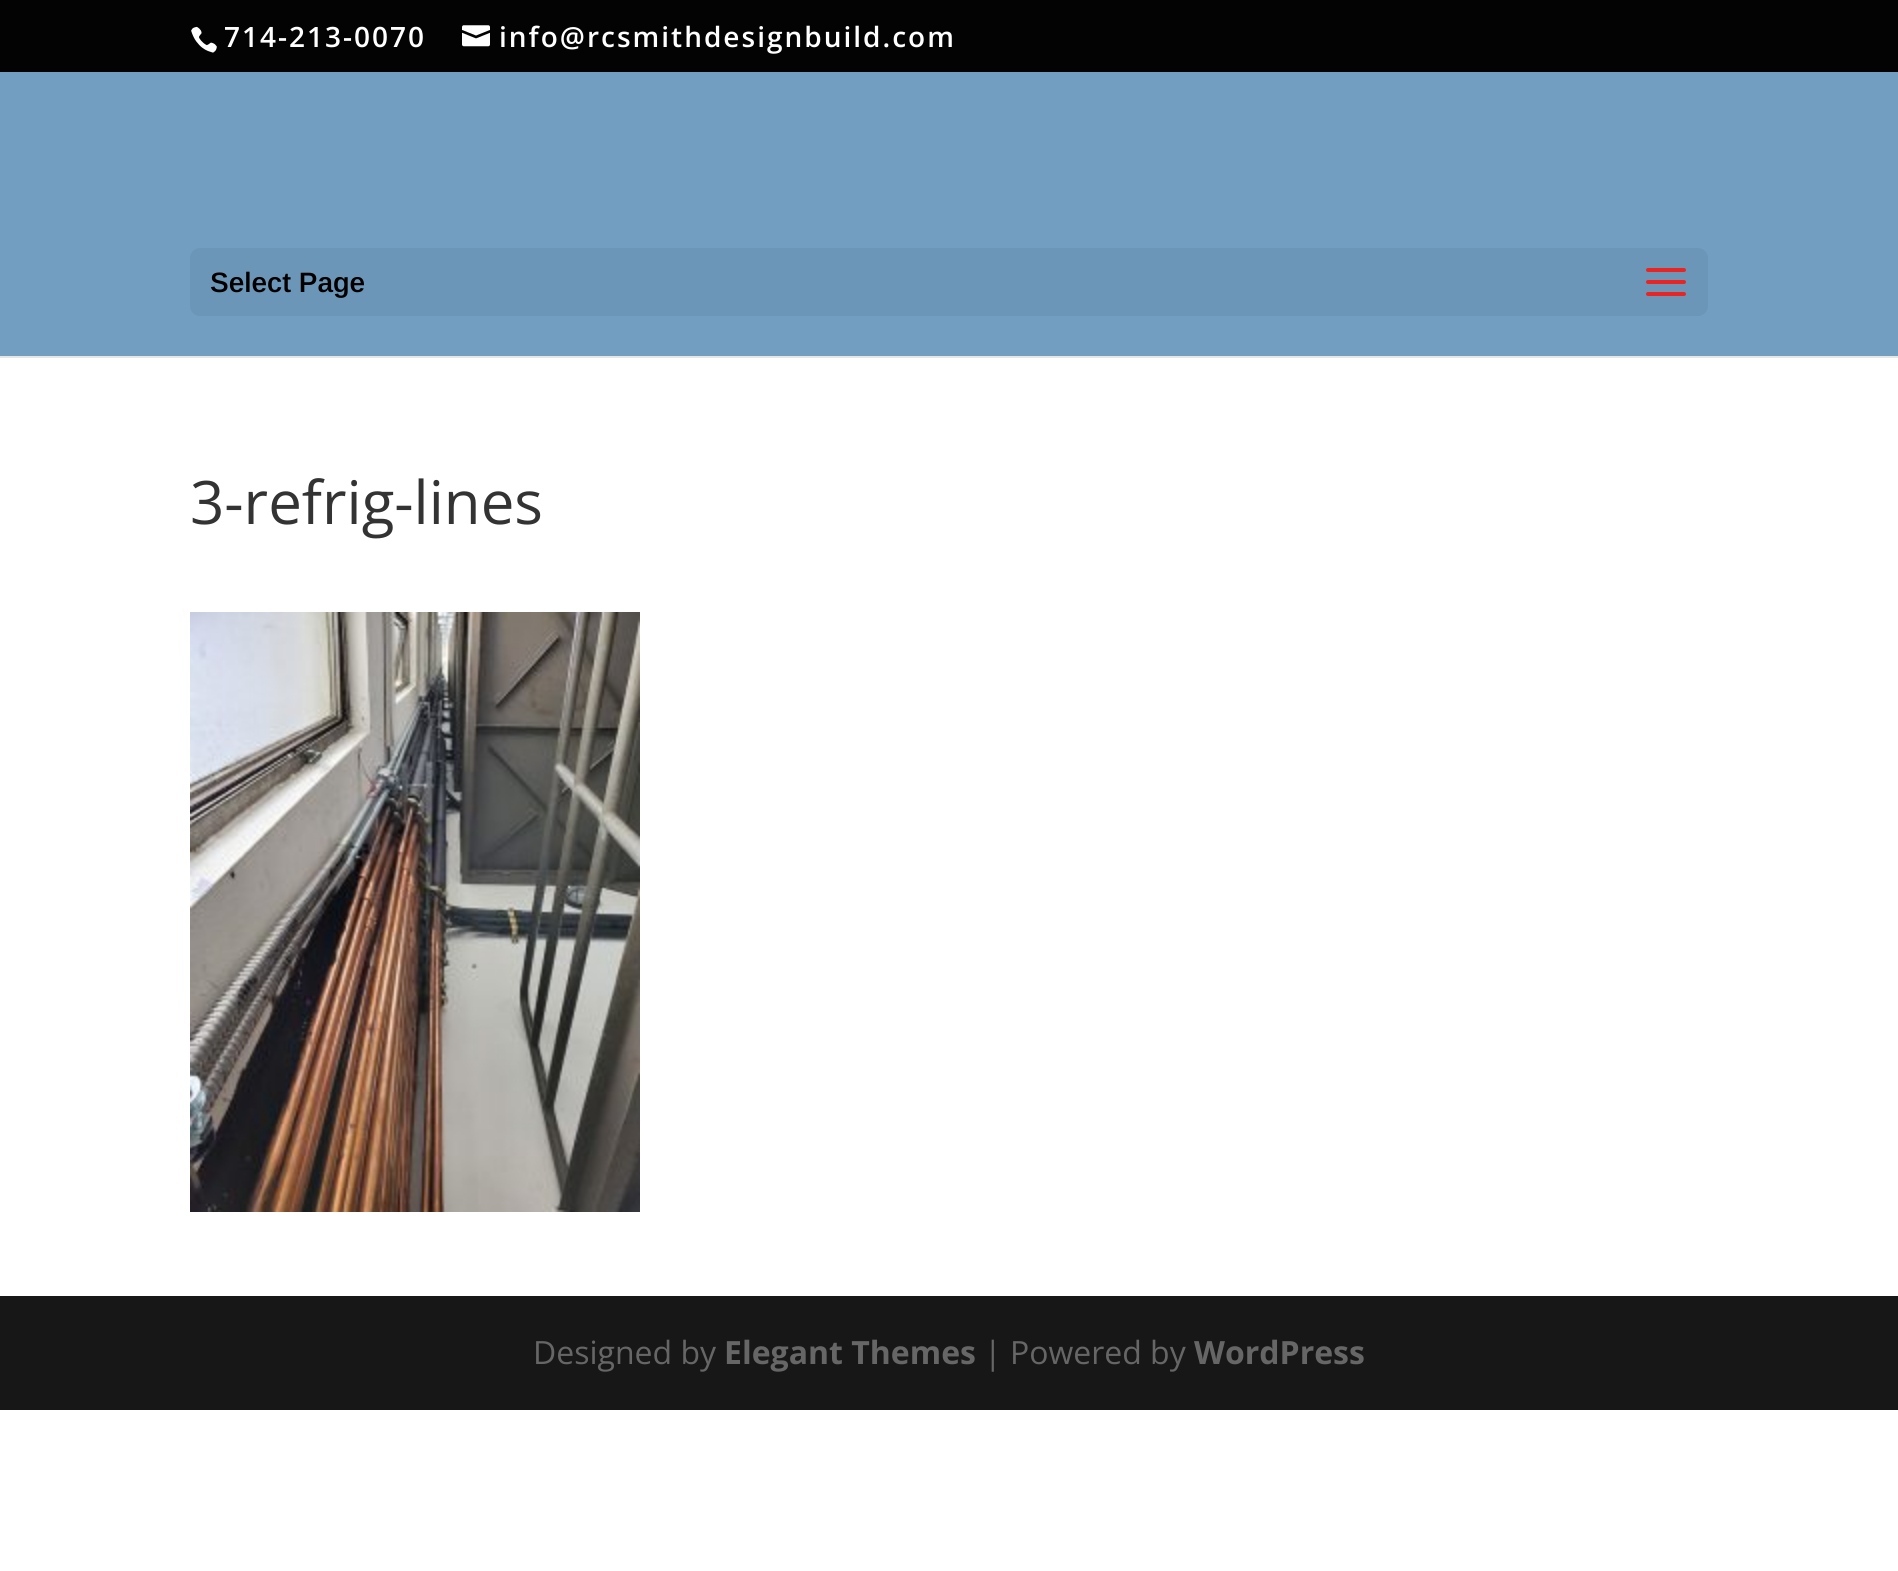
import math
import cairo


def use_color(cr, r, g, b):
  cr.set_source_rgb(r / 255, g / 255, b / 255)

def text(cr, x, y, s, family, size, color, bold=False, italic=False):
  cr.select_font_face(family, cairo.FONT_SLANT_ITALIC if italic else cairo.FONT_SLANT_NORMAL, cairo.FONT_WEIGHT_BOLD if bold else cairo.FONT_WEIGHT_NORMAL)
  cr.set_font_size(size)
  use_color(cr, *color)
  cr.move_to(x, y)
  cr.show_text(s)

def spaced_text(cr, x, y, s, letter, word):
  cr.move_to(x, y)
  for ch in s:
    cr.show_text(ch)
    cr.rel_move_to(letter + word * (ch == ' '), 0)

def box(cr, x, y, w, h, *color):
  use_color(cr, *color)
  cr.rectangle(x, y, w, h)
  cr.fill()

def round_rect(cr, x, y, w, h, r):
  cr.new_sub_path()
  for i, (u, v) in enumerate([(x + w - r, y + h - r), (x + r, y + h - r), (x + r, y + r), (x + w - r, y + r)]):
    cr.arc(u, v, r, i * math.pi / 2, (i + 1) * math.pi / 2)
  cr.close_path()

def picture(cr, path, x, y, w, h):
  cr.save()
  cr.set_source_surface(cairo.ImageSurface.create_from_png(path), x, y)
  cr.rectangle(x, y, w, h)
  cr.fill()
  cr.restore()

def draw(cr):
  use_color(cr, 255, 255, 255)
  cr.paint()
  box(cr, 0, 0, 1898, 72, 3, 3, 3)
  picture(cr, "img_01.png", 191, 26, 26, 27)
  picture(cr, "img_02.png", 462, 25, 28, 22)
  box(cr, 0, 356, 1898, 2, 230, 230, 230)
  box(cr, 0, 72, 1898, 284, 114, 158, 193)
  use_color(cr, 108, 150, 183)
  round_rect(cr, 190, 248, 1518, 68, 10)
  cr.fill()
  picture(cr, "img_03.png", 1646, 268, 40, 28)
  picture(cr, "img_04.png", 190, 612, 450, 600)
  box(cr, 0, 1296, 1898, 114, 23, 23, 23)
  cr.select_font_face("Open Sans SemiBold")
  cr.set_font_size(28)
  use_color(cr, 255, 255, 255)
  spaced_text(cr, 224, 47, "714-213-0070", 2, 0)
  spaced_text(cr, 499, 47, "info@rcsmithdesignbuild.com", 2, 0)
  text(cr, 210, 292, "Select Page", "Arimo SemiBold", 28, (0, 0, 0))
  text(cr, 190, 524, "3-refrig-lines", "Open Sans", 60, (51, 51, 51))
  text(cr, 533, 1364, "Designed by", "Open Sans", 32, (102, 102, 102))
  text(cr, 724, 1364, "Elegant Themes", "Open Sans", 32, (102, 102, 102), bold=True)
  text(cr, 984, 1364, "| Powered by", "Open Sans", 32, (102, 102, 102))
  text(cr, 1194, 1364, "WordPress", "Open Sans", 32, (102, 102, 102), bold=True)


surface = cairo.ImageSurface(cairo.FORMAT_RGB24, 1898, 1571)
cr = cairo.Context(surface)
options = cairo.FontOptions()
options.set_hint_metrics(cairo.HINT_METRICS_OFF)
options.set_hint_style(cairo.HINT_STYLE_NONE)
cr.set_font_options(options)
cr.set_miter_limit(4)
draw(cr)
surface.write_to_png("out.png")
